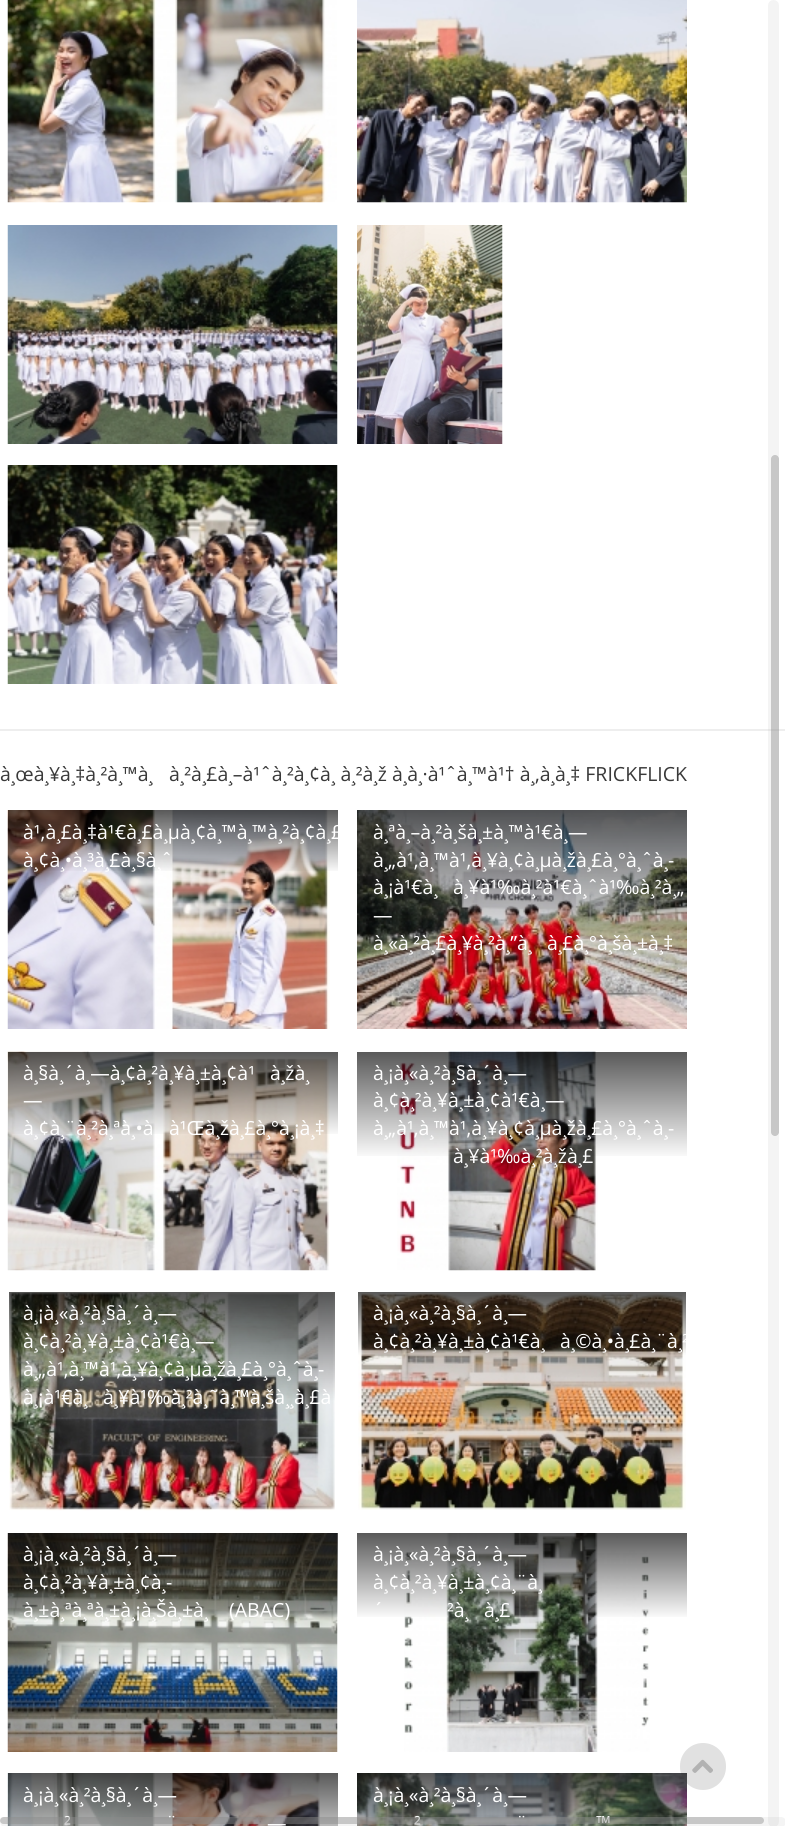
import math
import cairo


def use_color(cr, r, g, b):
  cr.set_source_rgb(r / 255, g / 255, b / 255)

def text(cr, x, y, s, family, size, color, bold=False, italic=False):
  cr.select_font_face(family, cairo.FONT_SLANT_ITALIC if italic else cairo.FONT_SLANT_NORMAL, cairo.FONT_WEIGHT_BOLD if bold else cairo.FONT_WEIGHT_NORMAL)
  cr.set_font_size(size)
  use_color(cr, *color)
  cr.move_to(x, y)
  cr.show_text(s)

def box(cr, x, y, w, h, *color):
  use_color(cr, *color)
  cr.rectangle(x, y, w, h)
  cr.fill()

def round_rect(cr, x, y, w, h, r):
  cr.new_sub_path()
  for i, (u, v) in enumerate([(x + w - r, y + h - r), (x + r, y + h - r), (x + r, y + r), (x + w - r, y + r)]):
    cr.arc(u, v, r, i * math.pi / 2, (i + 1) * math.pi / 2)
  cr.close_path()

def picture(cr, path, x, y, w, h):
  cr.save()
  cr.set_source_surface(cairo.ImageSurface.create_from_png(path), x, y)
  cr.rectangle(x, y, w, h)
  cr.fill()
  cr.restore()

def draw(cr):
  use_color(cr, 255, 255, 255)
  cr.paint()
  picture(cr, "img_01.png", 7, 0, 330, 203)
  picture(cr, "img_02.png", 357, 0, 330, 203)
  picture(cr, "img_03.png", 7, 225, 331, 219)
  picture(cr, "img_04.png", 357, 225, 146, 219)
  picture(cr, "img_05.png", 7, 465, 331, 219)
  box(cr, 0, 729, 785, 2, 238, 238, 238)
  picture(cr, "img_06.png", 7, 810, 323, 219)
  gradient = cairo.LinearGradient(173, 810, 173, 888)
  gradient.add_color_stop_rgba(0, 0, 0, 0, 0.65)
  gradient.add_color_stop_rgba(0.81, 0, 0, 0, 0)
  gradient.add_color_stop_rgba(1, 0, 0, 0, 0)
  cr.set_source(gradient)
  cr.rectangle(8, 810, 330, 61)
  cr.fill()
  picture(cr, "img_07.png", 357, 810, 330, 219)
  picture(cr, "img_08.png", 7, 1051, 323, 220)
  gradient = cairo.LinearGradient(173, 1052, 173, 1157)
  gradient.add_color_stop_rgba(0, 0, 0, 0, 0.65)
  gradient.add_color_stop_rgba(0.81, 0, 0, 0, 0)
  gradient.add_color_stop_rgba(1, 0, 0, 0, 0)
  cr.set_source(gradient)
  cr.rectangle(8, 1052, 330, 82)
  cr.fill()
  picture(cr, "img_09.png", 397, 1051, 201, 220)
  gradient = cairo.LinearGradient(522, 1052, 522, 1185)
  gradient.add_color_stop_rgba(0, 0, 0, 0, 0.65)
  gradient.add_color_stop_rgba(0.81, 0, 0, 0, 0)
  gradient.add_color_stop_rgba(1, 0, 0, 0, 0)
  cr.set_source(gradient)
  cr.rectangle(357, 1052, 330, 104)
  cr.fill()
  picture(cr, "img_10.png", 9, 1291, 326, 220)
  picture(cr, "img_11.png", 358, 1292, 328, 218)
  picture(cr, "img_12.png", 7, 1533, 331, 219)
  gradient = cairo.LinearGradient(173, 1533, 173, 1640)
  gradient.add_color_stop_rgba(0, 0, 0, 0, 0.65)
  gradient.add_color_stop_rgba(0.81, 0, 0, 0, 0)
  gradient.add_color_stop_rgba(1, 0, 0, 0, 0)
  cr.set_source(gradient)
  cr.rectangle(8, 1533, 330, 84)
  cr.fill()
  picture(cr, "img_13.png", 404, 1533, 246, 219)
  gradient = cairo.LinearGradient(522, 1533, 522, 1640)
  gradient.add_color_stop_rgba(0, 0, 0, 0, 0.65)
  gradient.add_color_stop_rgba(0.81, 0, 0, 0, 0)
  gradient.add_color_stop_rgba(1, 0, 0, 0, 0)
  cr.set_source(gradient)
  cr.rectangle(357, 1533, 330, 84)
  cr.fill()
  picture(cr, "img_14.png", 7, 1773, 313, 53)
  gradient = cairo.LinearGradient(173, 1773, 173, 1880)
  gradient.add_color_stop_rgba(0, 0, 0, 0, 0.65)
  gradient.add_color_stop_rgba(0.81, 0, 0, 0, 0)
  gradient.add_color_stop_rgba(1, 0, 0, 0, 0)
  cr.set_source(gradient)
  cr.rectangle(8, 1773, 330, 53)
  cr.fill()
  picture(cr, "img_15.png", 357, 1773, 330, 53)
  cr.set_source_rgba(0.6, 0.6, 0.6, 0.3)
  round_rect(cr, 680, 1743, 46, 47, 23)
  cr.fill()
  gradient = cairo.LinearGradient(522, 1773, 522, 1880)
  gradient.add_color_stop_rgba(0, 0, 0, 0, 0.65)
  gradient.add_color_stop_rgba(0.81, 0, 0, 0, 0)
  gradient.add_color_stop_rgba(1, 0, 0, 0, 0)
  cr.set_source(gradient)
  cr.rectangle(357, 1773, 330, 53)
  cr.fill()
  picture(cr, "img_16.png", 692, 1759, 21, 14)
  cr.set_source_rgba(0.549, 0.549, 0.549, 0.09)
  round_rect(cr, 768, 0, 11, 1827, 5.5)
  cr.fill()
  cr.set_source_rgba(0.549, 0.549, 0.549, 0.43)
  round_rect(cr, 771, 455, 8, 681, 4)
  cr.fill()
  cr.set_source_rgba(0.549, 0.549, 0.549, 0.09)
  round_rect(cr, 0, 1817, 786, 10, 5)
  cr.fill()
  text(cr, 0, 781, "à¸œà¸¥à¸‡à¸²à¸™à¸", "Open Sans", 19.5, (57, 57, 57))
  text(cr, 169, 781, "à¸²à¸£à¸–à¹ˆà¸²à¸¢à¸ à¸²à¸ž à¸à¸·à¹ˆà¸™à¹† à¸‚à¸à¸‡ FRICKFLICK", "Open Sans", 19.5, (57, 57, 57))
  cr.save()
  cr.rectangle(8, 810, 330, 219)
  cr.clip()
  text(cr, 23, 839, "à¹‚à¸£à¸‡à¹€à¸£à¸µà¸¢à¸™à¸™à¸²à¸¢à¸£", "Open Sans", 19.5, (255, 255, 255))
  cr.restore()
  text(cr, 23, 867, "à¸¢à¸•à¸³à¸£à¸§à¸ˆ", "Open Sans", 19.5, (255, 255, 255))
  text(cr, 373, 839, "à¸ªà¸–à¸²à¸šà¸±à¸™à¹€à¸—", "Open Sans", 19.5, (255, 255, 255))
  text(cr, 373, 867, "à¸„à¹‚à¸™à¹‚à¸¥à¸¢à¸µà¸žà¸£à¸°à¸ˆà¸-", "Open Sans", 19.5, (255, 255, 255))
  text(cr, 373, 894, "à¸¡à¹€à¸", "Open Sans", 19.5, (255, 255, 255))
  text(cr, 453, 894, "à¸¥à¹‰à¸²à¹€à¸ˆà¹‰à¸²à¸„", "Open Sans", 19.5, (255, 255, 255))
  text(cr, 373, 922, "—", "Open Sans", 19.5, (255, 255, 255))
  text(cr, 373, 950, "à¸«à¸²à¸£à¸¥à¸²à¸”à¸", "Open Sans", 19.5, (255, 255, 255))
  text(cr, 547, 950, "à¸£à¸°à¸šà¸±à¸‡", "Open Sans", 19.5, (255, 255, 255))
  text(cr, 23, 1080, "à¸§à¸´à¸—à¸¢à¸²à¸¥à¸±à¸¢à¹", "Open Sans", 19.5, (255, 255, 255))
  text(cr, 270, 1080, "à¸žà¸", "Open Sans", 19.5, (255, 255, 255))
  text(cr, 23, 1107, "—", "Open Sans", 19.5, (255, 255, 255))
  text(cr, 23, 1135, "à¸¢à¸¨à¸²à¸ªà¸•à", "Open Sans", 19.5, (255, 255, 255))
  text(cr, 169, 1135, "à¹Œà¸žà¸£à¸°à¸¡à¸‡", "Open Sans", 19.5, (255, 255, 255))
  text(cr, 373, 1080, "à¸¡à¸«à¸²à¸§à¸´à¸—", "Open Sans", 19.5, (255, 255, 255))
  text(cr, 373, 1107, "à¸¢à¸²à¸¥à¸±à¸¢à¹€à¸—", "Open Sans", 19.5, (255, 255, 255))
  text(cr, 373, 1135, "à¸„à¹‚à¸™à¹‚à¸¥à¸¢à¸µà¸žà¸£à¸°à¸ˆà¸-", "Open Sans", 19.5, (255, 255, 255))
  text(cr, 453, 1163, "à¸¥à¹‰à¸²à¸žà¸£", "Open Sans", 19.5, (255, 255, 255))
  text(cr, 23, 1320, "à¸¡à¸«à¸²à¸§à¸´à¸—", "Open Sans", 19.5, (255, 255, 255))
  text(cr, 23, 1348, "à¸¢à¸²à¸¥à¸±à¸¢à¹€à¸—", "Open Sans", 19.5, (255, 255, 255))
  text(cr, 23, 1376, "à¸„à¹‚à¸™à¹‚à¸¥à¸¢à¸µà¸žà¸£à¸°à¸ˆà¸-", "Open Sans", 19.5, (255, 255, 255))
  text(cr, 23, 1404, "à¸¡à¹€à¸", "Open Sans", 19.5, (255, 255, 255))
  text(cr, 103, 1404, "à¸¥à¹‰à¸²à¸˜à¸™à¸šà¸¸à¸£à", "Open Sans", 19.5, (255, 255, 255))
  text(cr, 373, 1320, "à¸¡à¸«à¸²à¸§à¸´à¸—", "Open Sans", 19.5, (255, 255, 255))
  text(cr, 373, 1348, "à¸¢à¸²à¸¥à¸±à¸¢à¹€à¸", "Open Sans", 19.5, (255, 255, 255))
  cr.save()
  cr.rectangle(357, 1292, 330, 219)
  cr.clip()
  text(cr, 560, 1348, "à¸©à¸•à¸£à¸¨à¸²", "Open Sans", 19.5, (255, 255, 255))
  cr.restore()
  text(cr, 23, 1561, "à¸¡à¸«à¸²à¸§à¸´à¸—", "Open Sans", 19.5, (255, 255, 255))
  text(cr, 23, 1589, "à¸¢à¸²à¸¥à¸±à¸¢à¸-", "Open Sans", 19.5, (255, 255, 255))
  text(cr, 23, 1617, "à¸±à¸ªà¸ªà¸±à¸¡à¸Šà¸±à¸", "Open Sans", 19.5, (255, 255, 255))
  text(cr, 229, 1617, "(ABAC)", "Open Sans", 19.5, (255, 255, 255))
  text(cr, 373, 1561, "à¸¡à¸«à¸²à¸§à¸´à¸—", "Open Sans", 19.5, (255, 255, 255))
  text(cr, 373, 1589, "à¸¢à¸²à¸¥à¸±à¸¢à¸¨à¸", "Open Sans", 19.5, (255, 255, 255))
  text(cr, 373, 1617, "´", "Open Sans", 19.5, (255, 255, 255))
  text(cr, 447, 1617, "²à¸", "Open Sans", 19.5, (255, 255, 255))
  text(cr, 484, 1617, "à¸£", "Open Sans", 19.5, (255, 255, 255))
  text(cr, 23, 1802, "à¸¡à¸«à¸²à¸§à¸´à¸—", "Open Sans", 19.5, (255, 255, 255))
  text(cr, 64, 1830, "²", "Open Sans", 19.5, (255, 255, 255))
  text(cr, 166, 1830, "¨", "Open Sans", 19.5, (255, 255, 255))
  text(cr, 267, 1830, "—", "Open Sans", 19.5, (255, 255, 255))
  text(cr, 373, 1802, "à¸¡à¸«à¸²à¸§à¸´à¸—", "Open Sans", 19.5, (255, 255, 255))
  text(cr, 414, 1830, "²", "Open Sans", 19.5, (255, 255, 255))
  text(cr, 516, 1830, "¨", "Open Sans", 19.5, (255, 255, 255))
  text(cr, 596, 1830, "™", "Open Sans", 19.5, (255, 255, 255))
  cr.set_source_rgba(0.549, 0.549, 0.549, 0.43)
  round_rect(cr, 0, 1817, 764, 7, 3.5)
  cr.fill()


surface = cairo.ImageSurface(cairo.FORMAT_RGB24, 785, 1826)
cr = cairo.Context(surface)
options = cairo.FontOptions()
options.set_hint_metrics(cairo.HINT_METRICS_OFF)
options.set_hint_style(cairo.HINT_STYLE_NONE)
cr.set_font_options(options)
cr.set_miter_limit(4)
draw(cr)
surface.write_to_png("out.png")
